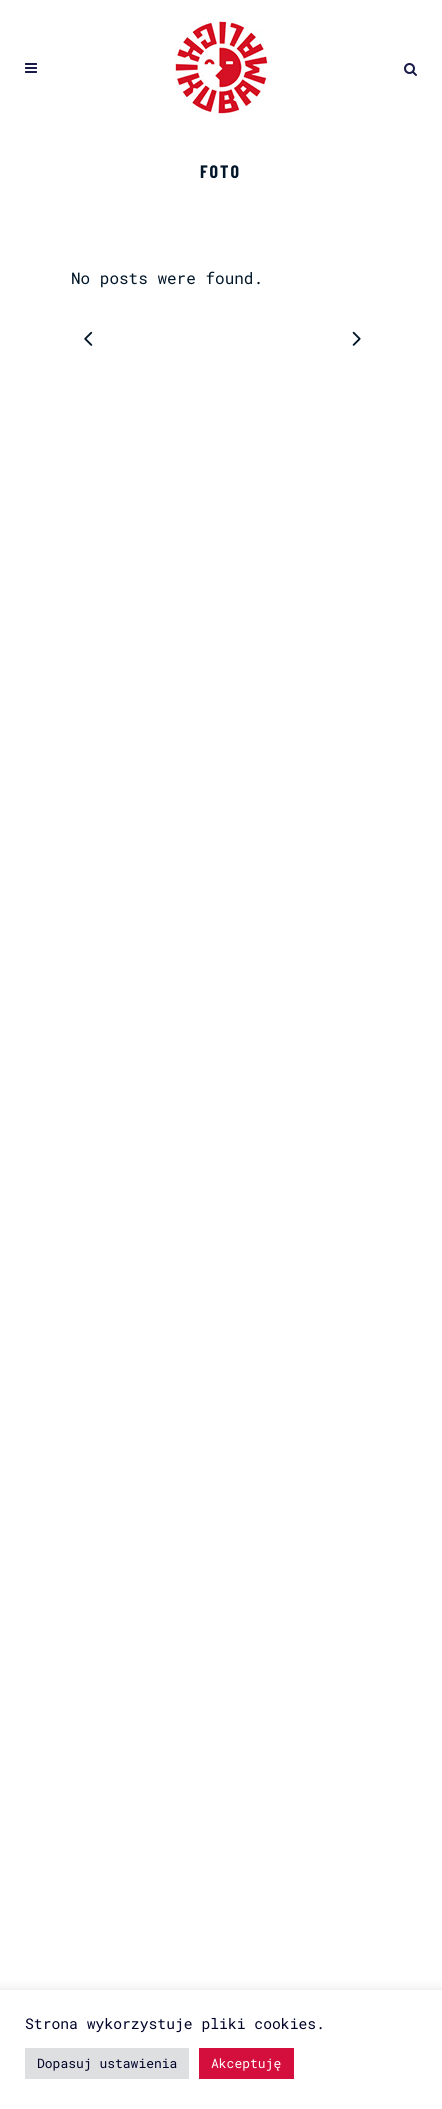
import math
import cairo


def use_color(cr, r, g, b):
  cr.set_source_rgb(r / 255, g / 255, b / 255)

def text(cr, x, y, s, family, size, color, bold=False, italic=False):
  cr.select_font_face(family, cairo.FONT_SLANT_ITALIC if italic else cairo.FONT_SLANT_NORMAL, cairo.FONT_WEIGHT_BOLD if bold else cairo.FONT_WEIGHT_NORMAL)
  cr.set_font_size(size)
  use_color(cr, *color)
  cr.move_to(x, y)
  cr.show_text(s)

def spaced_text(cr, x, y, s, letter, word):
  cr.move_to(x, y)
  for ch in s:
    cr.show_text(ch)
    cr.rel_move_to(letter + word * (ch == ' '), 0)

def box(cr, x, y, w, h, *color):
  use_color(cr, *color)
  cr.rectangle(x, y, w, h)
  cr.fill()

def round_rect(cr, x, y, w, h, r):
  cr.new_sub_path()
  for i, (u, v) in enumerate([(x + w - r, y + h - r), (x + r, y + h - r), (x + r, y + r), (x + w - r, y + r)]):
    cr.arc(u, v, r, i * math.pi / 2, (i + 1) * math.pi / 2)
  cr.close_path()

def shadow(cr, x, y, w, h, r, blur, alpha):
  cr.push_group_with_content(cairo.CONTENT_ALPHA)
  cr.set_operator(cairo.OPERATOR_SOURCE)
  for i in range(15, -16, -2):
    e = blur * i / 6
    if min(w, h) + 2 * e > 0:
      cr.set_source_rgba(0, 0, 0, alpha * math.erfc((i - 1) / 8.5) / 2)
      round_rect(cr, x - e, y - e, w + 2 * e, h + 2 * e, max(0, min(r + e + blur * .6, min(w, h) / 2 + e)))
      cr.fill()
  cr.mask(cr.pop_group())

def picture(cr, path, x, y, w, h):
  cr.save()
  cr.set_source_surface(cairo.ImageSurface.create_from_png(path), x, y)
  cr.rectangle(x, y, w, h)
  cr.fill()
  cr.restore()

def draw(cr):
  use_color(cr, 255, 255, 255)
  cr.paint()
  picture(cr, "img_01.png", 25, 63, 12, 10)
  picture(cr, "img_02.png", 175, 21, 96, 96)
  picture(cr, "img_03.png", 404, 63, 13, 13)
  picture(cr, "img_04.png", 84, 331, 9, 15)
  picture(cr, "img_05.png", 352, 331, 9, 15)
  use_color(cr, 172, 171, 171)
  shadow(cr, 0, 1989, 442, 119, 0, 5, 0.3)
  box(cr, 0, 1990, 442, 119, 255, 255, 255)
  box(cr, 25, 2048, 164, 31, 222, 223, 224)
  box(cr, 199, 2048, 95, 31, 212, 15, 62)
  cr.select_font_face("Barlow Condensed", cairo.FONT_SLANT_NORMAL, cairo.FONT_WEIGHT_BOLD)
  cr.set_font_size(18)
  use_color(cr, 1, 22, 40)
  spaced_text(cr, 200, 178, "FOTO", 2, 0)
  text(cr, 71, 284, "No posts were found.", "Roboto Mono", 16, (1, 22, 40))
  text(cr, 25, 2029, "Strona wykorzystuje pliki cookies.", "Roboto Mono", 14.7, (0, 2, 41))
  text(cr, 37, 2068, "Dopasuj ustawienia", "Roboto Mono", 13, (0, 2, 41))
  text(cr, 211, 2068, "Akceptuję", "Roboto Mono", 13, (255, 255, 255))


surface = cairo.ImageSurface(cairo.FORMAT_RGB24, 442, 2109)
cr = cairo.Context(surface)
options = cairo.FontOptions()
options.set_hint_metrics(cairo.HINT_METRICS_OFF)
options.set_hint_style(cairo.HINT_STYLE_NONE)
cr.set_font_options(options)
cr.set_miter_limit(4)
draw(cr)
surface.write_to_png("out.png")
